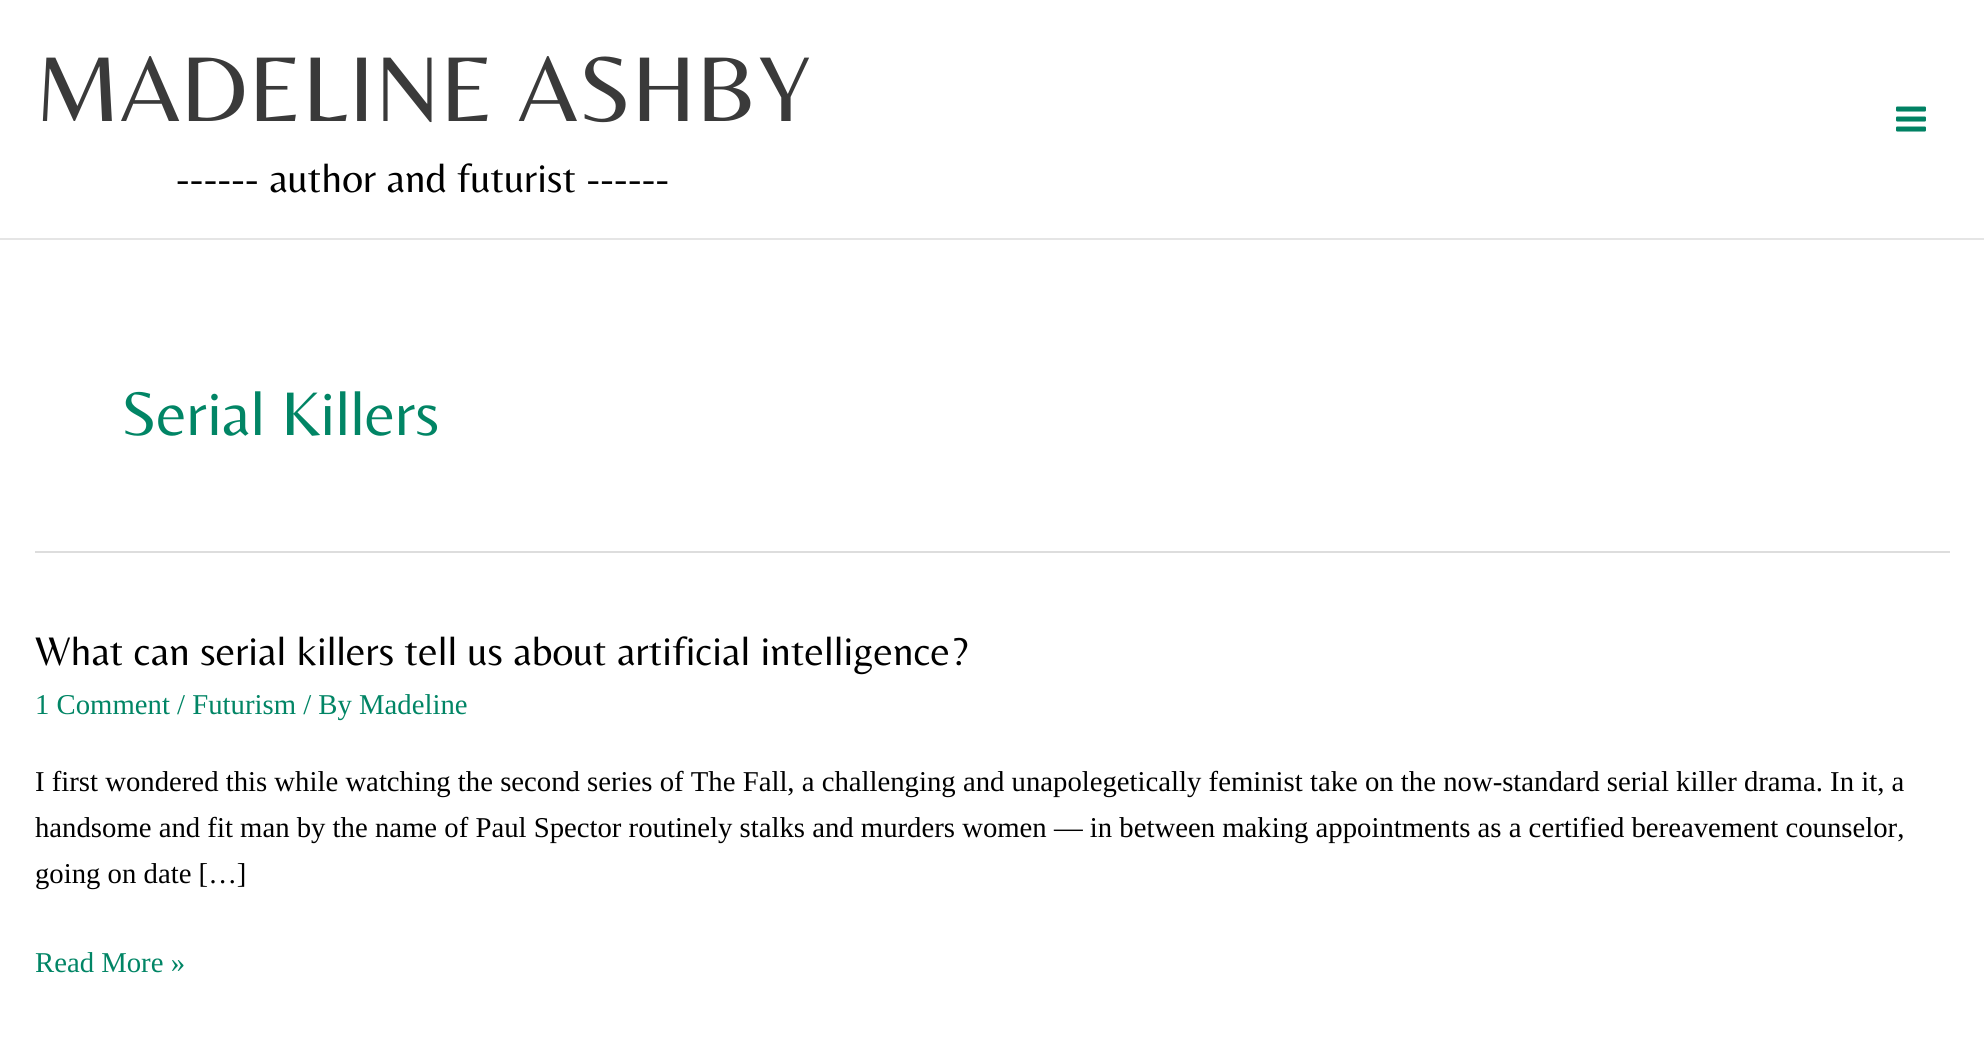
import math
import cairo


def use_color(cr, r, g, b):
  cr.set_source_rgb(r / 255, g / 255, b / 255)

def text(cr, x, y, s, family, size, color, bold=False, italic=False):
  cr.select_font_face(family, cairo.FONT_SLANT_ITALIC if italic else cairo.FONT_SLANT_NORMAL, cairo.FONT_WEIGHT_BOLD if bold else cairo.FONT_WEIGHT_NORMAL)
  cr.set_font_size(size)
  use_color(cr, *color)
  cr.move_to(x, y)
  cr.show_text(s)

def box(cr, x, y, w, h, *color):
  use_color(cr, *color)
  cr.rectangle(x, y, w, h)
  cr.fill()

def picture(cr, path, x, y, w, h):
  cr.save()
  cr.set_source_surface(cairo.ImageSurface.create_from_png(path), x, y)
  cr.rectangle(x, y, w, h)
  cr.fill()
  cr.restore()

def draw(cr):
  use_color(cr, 255, 255, 255)
  cr.paint()
  box(cr, 0, 238, 1984, 2, 229, 229, 229)
  picture(cr, "img_01.png", 1896, 106, 30, 26)
  box(cr, 35, 551, 1915, 2, 221, 221, 221)
  text(cr, 35, 121, "MADELINE ASHBY", "Belleza", 95.75, (58, 58, 58))
  text(cr, 176, 192, "------ author and futurist ------", "Belleza", 41.5, (0, 0, 0))
  text(cr, 121, 435, "Serial Killers", "Belleza", 64, (1, 133, 101))
  text(cr, 35, 665, "What can serial killers tell us about artificial intelligence?", "Belleza", 41.5, (0, 0, 0))
  text(cr, 35, 714, "1 Comment / Futurism / By Madeline", "Liberation Serif", 28.73, (1, 133, 101))
  text(cr, 35, 791, "I first wondered this while watching the second series of The Fall, a challenging and unapolegetically feminist take on the now-standard serial killer drama. In it, a", "Liberation Serif", 28.73, (0, 0, 0))
  text(cr, 35, 837, "handsome and fit man by the name of Paul Spector routinely stalks and murders women — in between making appointments as a certified bereavement counselor,", "Liberation Serif", 28.73, (0, 0, 0))
  text(cr, 35, 883, "going on date […]", "Liberation Serif", 28.73, (0, 0, 0))
  text(cr, 35, 972, "Read More »", "Liberation Serif", 28.73, (1, 133, 101))


surface = cairo.ImageSurface(cairo.FORMAT_RGB24, 1984, 1047)
cr = cairo.Context(surface)
options = cairo.FontOptions()
options.set_hint_metrics(cairo.HINT_METRICS_OFF)
options.set_hint_style(cairo.HINT_STYLE_NONE)
cr.set_font_options(options)
cr.set_miter_limit(4)
draw(cr)
surface.write_to_png("out.png")
